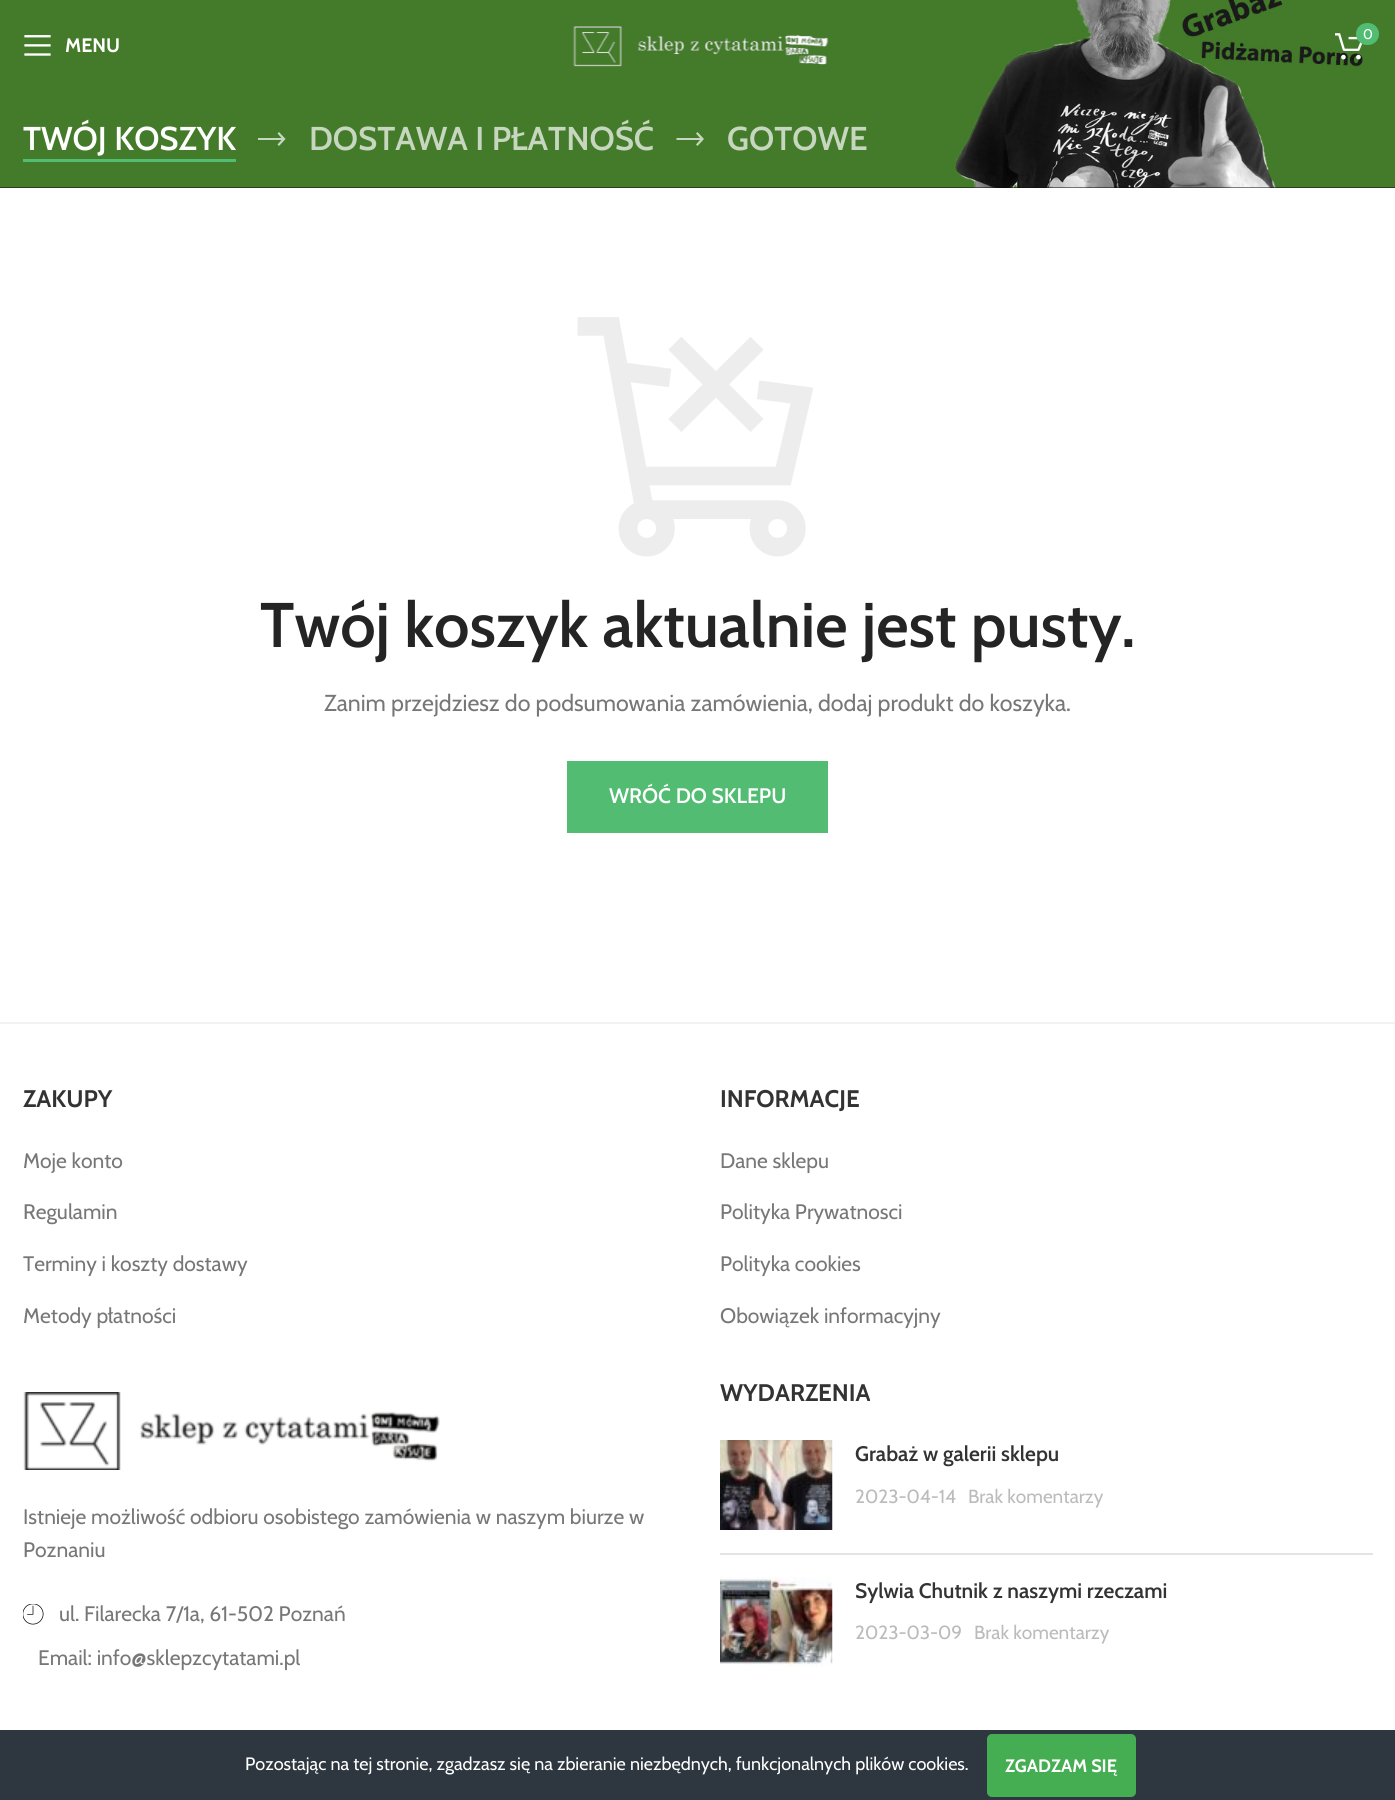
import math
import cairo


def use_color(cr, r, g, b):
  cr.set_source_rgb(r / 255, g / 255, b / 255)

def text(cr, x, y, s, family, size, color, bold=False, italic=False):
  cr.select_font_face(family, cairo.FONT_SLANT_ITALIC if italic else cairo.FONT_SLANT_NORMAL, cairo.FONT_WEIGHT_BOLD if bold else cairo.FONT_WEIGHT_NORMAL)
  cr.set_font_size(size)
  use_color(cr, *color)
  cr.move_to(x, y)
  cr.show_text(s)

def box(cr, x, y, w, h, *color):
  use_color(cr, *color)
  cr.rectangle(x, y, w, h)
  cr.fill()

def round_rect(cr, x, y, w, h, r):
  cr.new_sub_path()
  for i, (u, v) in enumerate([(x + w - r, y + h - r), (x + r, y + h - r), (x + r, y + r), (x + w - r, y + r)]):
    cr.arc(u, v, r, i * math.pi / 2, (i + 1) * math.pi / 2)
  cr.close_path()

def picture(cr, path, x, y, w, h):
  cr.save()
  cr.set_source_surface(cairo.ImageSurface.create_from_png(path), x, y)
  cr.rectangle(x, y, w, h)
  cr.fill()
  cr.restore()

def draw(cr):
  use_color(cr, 255, 255, 255)
  cr.paint()
  box(cr, 0, 187, 1395, 1, 10, 10, 10)
  picture(cr, "img_04.png", 0, 0, 1395, 188)
  picture(cr, "img_01.png", 573, 26, 256, 41)
  picture(cr, "img_02.png", 1335, 33, 28, 27)
  use_color(cr, 82, 189, 114)
  round_rect(cr, 1356, 23, 23, 22, 11)
  cr.fill()
  picture(cr, "img_03.png", 24, 35, 27, 21)
  box(cr, 23, 159, 213, 3, 82, 189, 114)
  use_color(cr, 199, 215, 191)
  cr.new_path()
  cr.move_to(285.5, 139)
  cr.line_to(279, 132)
  cr.line_to(277.5, 133.5)
  cr.line_to(281.5, 138)
  cr.line_to(258, 138)
  cr.line_to(258, 140)
  cr.line_to(281.5, 140)
  cr.line_to(277.5, 144.5)
  cr.line_to(279, 146)
  cr.close_path()
  cr.fill()
  cr.new_path()
  cr.move_to(704, 139)
  cr.line_to(697.5, 132)
  cr.line_to(696, 133.5)
  cr.line_to(700, 138)
  cr.line_to(676.5, 138)
  cr.line_to(676.5, 140)
  cr.line_to(700, 140)
  cr.line_to(696, 144.5)
  cr.line_to(697.5, 146)
  cr.close_path()
  cr.fill()
  picture(cr, "img_05.png", 577, 317, 236, 240)
  box(cr, 567, 761, 261, 72, 82, 189, 114)
  box(cr, 0, 1022, 1395, 2, 242, 242, 242)
  picture(cr, "img_06.png", 23, 1392, 417, 78)
  picture(cr, "img_07.png", 23, 1604, 21, 21)
  box(cr, 720, 1553, 653, 2, 228, 228, 228)
  picture(cr, "img_08.png", 720, 1440, 113, 90)
  picture(cr, "img_09.png", 720, 1577, 113, 90)
  box(cr, 0, 1730, 1395, 70, 46, 54, 63)
  use_color(cr, 69, 174, 82)
  round_rect(cr, 987, 1734, 149, 63, 5)
  cr.fill()
  text(cr, 1363, 39, "0", "Cabin", 14, (255, 255, 255))
  text(cr, 65, 52, "MENU", "Cabin", 19.5, (255, 255, 255), bold=True)
  text(cr, 23, 150, "TWÓJ KOSZYK", "Cabin SemiBold", 33, (255, 255, 255))
  text(cr, 309, 150, "DOSTAWA I PŁATNOŚĆ", "Cabin SemiBold", 33, (199, 215, 191))
  text(cr, 727, 150, "GOTOWE", "Cabin SemiBold", 33, (199, 215, 191))
  text(cr, 260, 647, "Twój koszyk aktualnie jest pusty.", "Cabin SemiBold", 63, (36, 36, 36))
  text(cr, 324, 711, "Zanim przejdziesz do podsumowania zamówienia, dodaj produkt do koszyka.", "Cabin", 23.1, (119, 119, 119))
  text(cr, 609, 803, "WRÓĆ DO SKLEPU", "Cabin SemiBold", 21, (255, 255, 255))
  text(cr, 23, 1107, "ZAKUPY", "Cabin", 24, (51, 51, 51), bold=True)
  text(cr, 23, 1168, "Moje konto", "Cabin", 21, (119, 119, 119))
  text(cr, 23, 1219, "Regulamin", "Cabin", 21, (119, 119, 119))
  text(cr, 23, 1271, "Terminy i koszty dostawy", "Cabin", 21, (119, 119, 119))
  text(cr, 23, 1323, "Metody płatności", "Cabin", 21, (119, 119, 119))
  text(cr, 720, 1107, "INFORMACJE", "Cabin", 24, (51, 51, 51), bold=True)
  text(cr, 720, 1168, "Dane sklepu", "Cabin", 21, (119, 119, 119))
  text(cr, 720, 1219, "Polityka Prywatnosci", "Cabin", 21, (119, 119, 119))
  text(cr, 720, 1271, "Polityka cookies", "Cabin", 21, (119, 119, 119))
  text(cr, 720, 1323, "Obowiązek informacyjny", "Cabin", 21, (119, 119, 119))
  text(cr, 23, 1524, "Istnieje możliwość odbioru osobistego zamówienia w naszym biurze w", "Cabin", 21, (119, 119, 119))
  text(cr, 23, 1557, "Poznaniu", "Cabin", 21, (119, 119, 119))
  text(cr, 59, 1621, "ul. Filarecka 7/1a, 61-502 Poznań", "Cabin", 21, (119, 119, 119))
  text(cr, 38, 1665, "Email: info@sklepzcytatami.pl", "Cabin", 21, (119, 119, 119))
  text(cr, 720, 1401, "WYDARZENIA", "Cabin", 24, (51, 51, 51), bold=True)
  text(cr, 855, 1461, "Grabaż w galerii sklepu", "Cabin SemiBold", 21, (51, 51, 51))
  text(cr, 855, 1503, "2023-04-14", "Cabin", 19, (187, 187, 187))
  text(cr, 968, 1503, "Brak komentarzy", "Cabin", 19, (187, 187, 187))
  text(cr, 855, 1598, "Sylwia Chutnik z naszymi rzeczami", "Cabin SemiBold", 21, (51, 51, 51))
  text(cr, 855, 1639, "2023-03-09", "Cabin", 19, (187, 187, 187))
  text(cr, 974, 1639, "Brak komentarzy", "Cabin", 19, (187, 187, 187))
  text(cr, 245, 1770, "Pozostając na tej stronie, zgadzasz się na zbieranie niezbędnych, funkcjonalnych plików cookies.", "Cabin", 18, (255, 255, 255))
  text(cr, 1005, 1772, "ZGADZAM SIĘ", "Cabin", 18, (255, 255, 255), bold=True)


surface = cairo.ImageSurface(cairo.FORMAT_RGB24, 1395, 1800)
cr = cairo.Context(surface)
options = cairo.FontOptions()
options.set_hint_metrics(cairo.HINT_METRICS_OFF)
options.set_hint_style(cairo.HINT_STYLE_NONE)
cr.set_font_options(options)
cr.set_miter_limit(4)
draw(cr)
surface.write_to_png("out.png")
